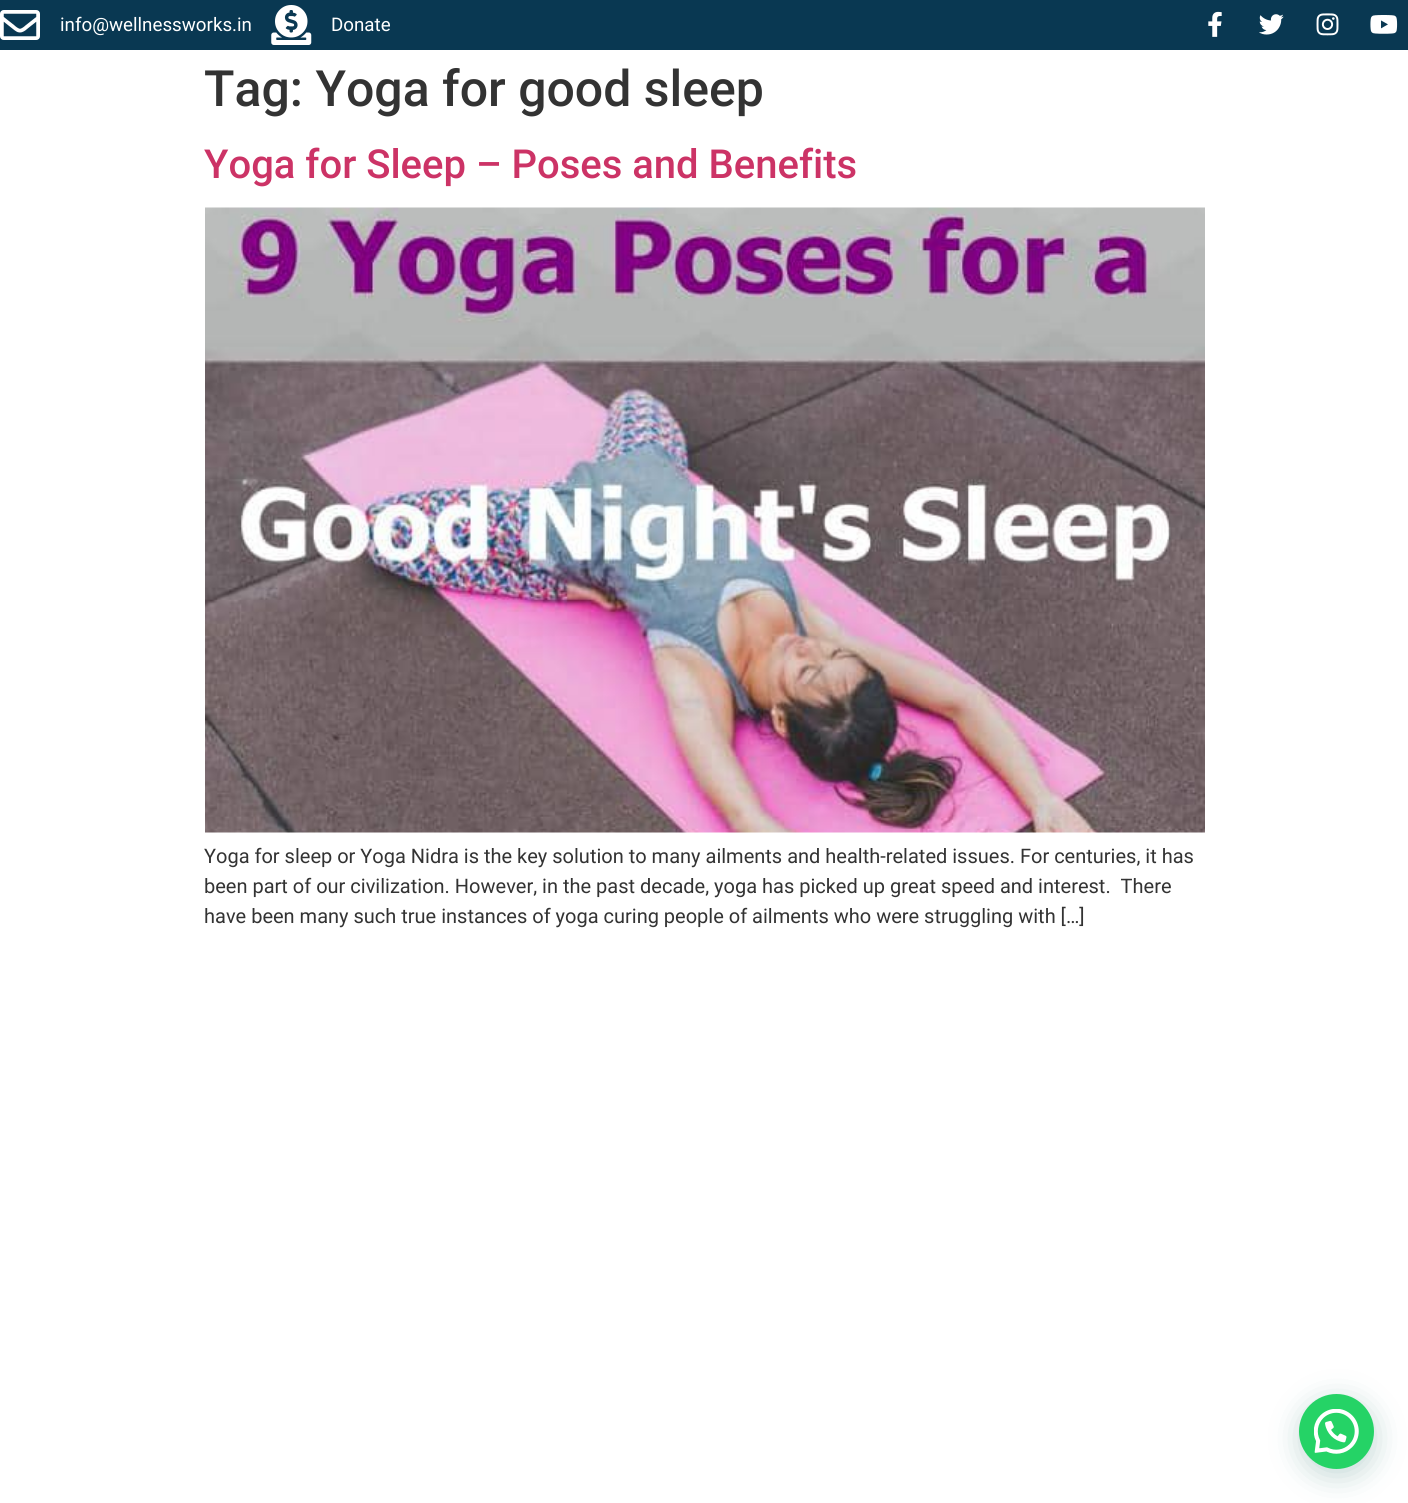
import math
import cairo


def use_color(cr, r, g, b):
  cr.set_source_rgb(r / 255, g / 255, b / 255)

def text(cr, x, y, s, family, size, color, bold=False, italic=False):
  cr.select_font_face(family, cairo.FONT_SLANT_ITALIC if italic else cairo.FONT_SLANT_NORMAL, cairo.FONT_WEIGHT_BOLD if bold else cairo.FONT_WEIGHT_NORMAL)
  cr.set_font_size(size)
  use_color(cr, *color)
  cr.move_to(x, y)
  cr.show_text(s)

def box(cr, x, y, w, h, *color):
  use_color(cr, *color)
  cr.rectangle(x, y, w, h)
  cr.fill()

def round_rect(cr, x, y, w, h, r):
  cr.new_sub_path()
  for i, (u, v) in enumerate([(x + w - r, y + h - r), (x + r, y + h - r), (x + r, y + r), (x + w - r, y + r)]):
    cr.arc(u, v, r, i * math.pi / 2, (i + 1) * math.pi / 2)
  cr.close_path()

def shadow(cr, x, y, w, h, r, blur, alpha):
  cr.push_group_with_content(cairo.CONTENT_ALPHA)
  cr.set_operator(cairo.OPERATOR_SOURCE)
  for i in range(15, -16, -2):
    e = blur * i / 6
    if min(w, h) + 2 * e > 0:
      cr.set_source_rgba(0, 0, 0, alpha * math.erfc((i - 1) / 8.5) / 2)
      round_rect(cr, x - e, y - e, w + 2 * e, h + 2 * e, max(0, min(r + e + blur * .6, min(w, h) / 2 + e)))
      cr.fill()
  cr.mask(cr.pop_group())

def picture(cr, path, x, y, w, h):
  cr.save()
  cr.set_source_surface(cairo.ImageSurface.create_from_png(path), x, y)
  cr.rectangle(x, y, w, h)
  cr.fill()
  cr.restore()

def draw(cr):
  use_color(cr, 255, 255, 255)
  cr.paint()
  box(cr, 0, 0, 1408, 50, 9, 56, 82)
  picture(cr, "img_01.png", 0, 10, 40, 30)
  picture(cr, "img_02.png", 271, 5, 41, 40)
  picture(cr, "img_03.png", 1208, 11, 14, 26)
  picture(cr, "img_04.png", 1259, 14, 25, 21)
  picture(cr, "img_05.png", 1316, 13, 23, 23)
  picture(cr, "img_06.png", 1370, 15, 28, 19)
  picture(cr, "img_07.png", 205, 207, 1000, 626)
  use_color(cr, 7, 94, 84)
  shadow(cr, 1300, 1401, 75, 75, 37.5, 15, 0.24)
  use_color(cr, 37, 211, 102)
  cr.arc(1336.5, 1431.5, 37.5, 0, 2 * math.pi)
  cr.fill()
  picture(cr, "img_08.png", 1314, 1409, 45, 45)
  text(cr, 60, 31, "info@wellnessworks.in", "Roboto", 18.75, (255, 255, 255))
  text(cr, 331, 31, "Donate", "Roboto", 18.75, (255, 255, 255))
  text(cr, 204, 106, "Tag: Yoga for good sleep", "Roboto Medium", 50, (51, 51, 51))
  text(cr, 204, 178, "Yoga for Sleep – Poses and Benefits", "Roboto Medium", 40, (204, 51, 102))
  text(cr, 204, 863, "Yoga for sleep or Yoga Nidra is the key solution to many ailments and health-related issues. For centuries, it has", "Roboto", 20, (51, 51, 51))
  text(cr, 204, 893, "been part of our civilization. However, in the past decade, yoga has picked up great speed and interest.  There", "Roboto", 20, (51, 51, 51))
  text(cr, 204, 923, "have been many such true instances of yoga curing people of ailments who were struggling with […]", "Roboto", 20, (51, 51, 51))


surface = cairo.ImageSurface(cairo.FORMAT_RGB24, 1408, 1503)
cr = cairo.Context(surface)
options = cairo.FontOptions()
options.set_hint_metrics(cairo.HINT_METRICS_OFF)
options.set_hint_style(cairo.HINT_STYLE_NONE)
cr.set_font_options(options)
cr.set_miter_limit(4)
draw(cr)
surface.write_to_png("out.png")
